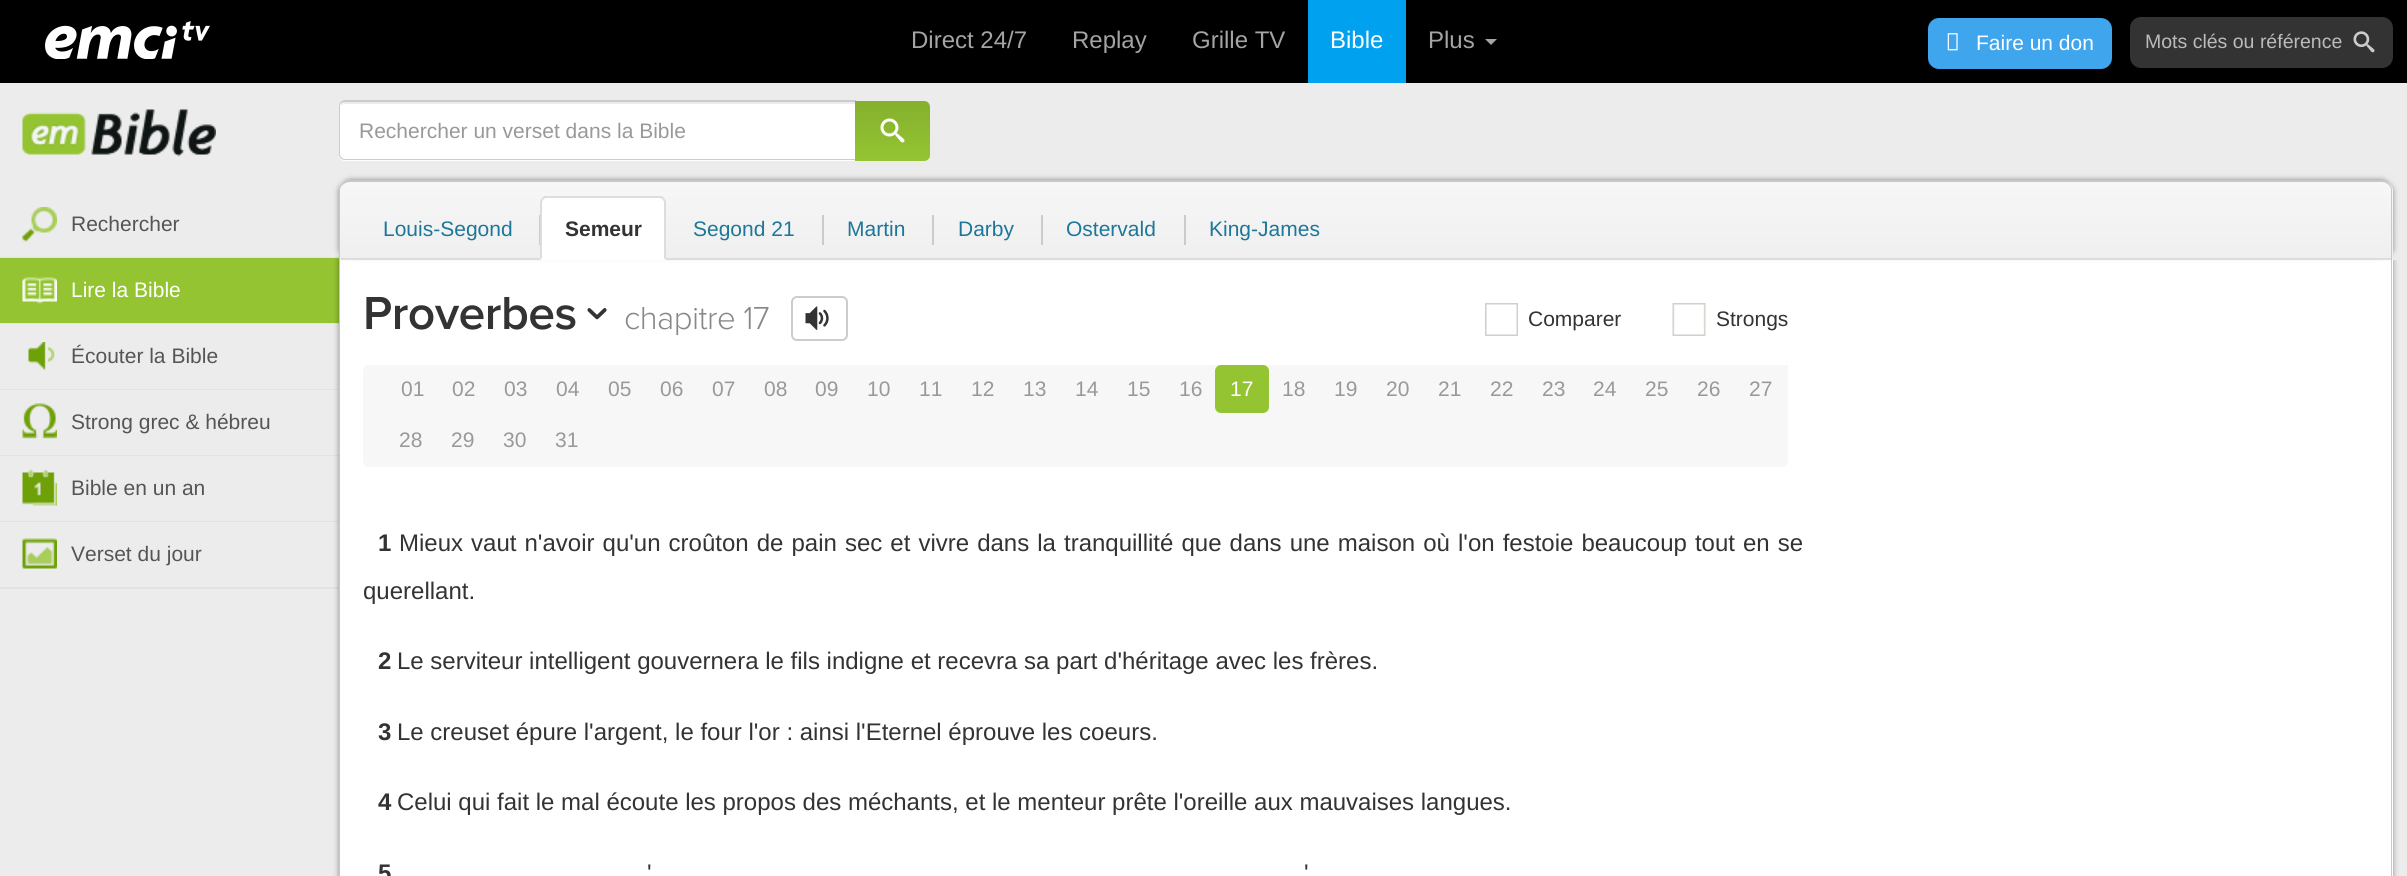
import math
import cairo


def use_color(cr, r, g, b):
  cr.set_source_rgb(r / 255, g / 255, b / 255)

def text(cr, x, y, s, family, size, color, bold=False, italic=False):
  cr.select_font_face(family, cairo.FONT_SLANT_ITALIC if italic else cairo.FONT_SLANT_NORMAL, cairo.FONT_WEIGHT_BOLD if bold else cairo.FONT_WEIGHT_NORMAL)
  cr.set_font_size(size)
  use_color(cr, *color)
  cr.move_to(x, y)
  cr.show_text(s)

def spaced_text(cr, x, y, s, letter, word):
  cr.move_to(x, y)
  for ch in s:
    cr.show_text(ch)
    cr.rel_move_to(letter + word * (ch == ' '), 0)

def box(cr, x, y, w, h, *color):
  use_color(cr, *color)
  cr.rectangle(x, y, w, h)
  cr.fill()

def round_rect(cr, x, y, w, h, r):
  cr.new_sub_path()
  for i, (u, v) in enumerate([(x + w - r, y + h - r), (x + r, y + h - r), (x + r, y + r), (x + w - r, y + r)]):
    cr.arc(u, v, r, i * math.pi / 2, (i + 1) * math.pi / 2)
  cr.close_path()

def shadow(cr, x, y, w, h, r, blur, alpha):
  cr.push_group_with_content(cairo.CONTENT_ALPHA)
  cr.set_operator(cairo.OPERATOR_SOURCE)
  for i in range(15, -16, -2):
    e = blur * i / 6
    if min(w, h) + 2 * e > 0:
      cr.set_source_rgba(0, 0, 0, alpha * math.erfc((i - 1) / 8.5) / 2)
      round_rect(cr, x - e, y - e, w + 2 * e, h + 2 * e, max(0, min(r + e + blur * .6, min(w, h) / 2 + e)))
      cr.fill()
  cr.mask(cr.pop_group())

def picture(cr, path, x, y, w, h):
  cr.save()
  cr.set_source_surface(cairo.ImageSurface.create_from_png(path), x, y)
  cr.rectangle(x, y, w, h)
  cr.fill()
  cr.restore()

def draw(cr):
  use_color(cr, 237, 236, 236)
  cr.paint()
  box(cr, 0, 0, 2407, 83, 0, 0, 0)
  picture(cr, "img_01.png", 45, 21, 165, 38)
  box(cr, 1308, 0, 98, 83, 0, 162, 240)
  use_color(cr, 164, 164, 164)
  cr.new_path()
  cr.move_to(1485, 39)
  cr.line_to(1497, 39)
  cr.line_to(1491, 45)
  cr.close_path()
  cr.fill()
  use_color(cr, 63, 165, 236)
  round_rect(cr, 1928, 18, 184, 51, 11)
  cr.fill()
  picture(cr, "img_02.png", 1947, 33, 11, 18)
  use_color(cr, 51, 51, 51)
  round_rect(cr, 2130, 17, 263, 51, 11)
  cr.fill()
  picture(cr, "img_03.png", 2353, 31, 22, 22)
  box(cr, 0, 257, 339, 1, 226, 226, 226)
  box(cr, 0, 258, 339, 65, 148, 196, 50)
  box(cr, 0, 323, 339, 1, 226, 226, 226)
  box(cr, 0, 389, 339, 1, 226, 226, 226)
  box(cr, 0, 455, 339, 1, 226, 226, 226)
  box(cr, 0, 521, 339, 1, 226, 226, 226)
  box(cr, 0, 587, 339, 2, 226, 226, 226)
  use_color(cr, 0, 0, 0)
  shadow(cr, 348, 255, 2045, 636, 6, 3, 0.4)
  shadow(cr, 339, 255, 2045, 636, 6, 3, 0.4)
  box(cr, 340, 260, 2053, 616, 255, 255, 255)
  use_color(cr, 200, 200, 200)
  cr.set_fill_rule(cairo.FILL_RULE_EVEN_ODD)
  cr.new_path()
  cr.move_to(339, 250)
  cr.line_to(2392, 250)
  cr.line_to(2392, 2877)
  cr.curve_to(2392, 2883, 2388, 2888, 2382, 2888)
  cr.line_to(350, 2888)
  cr.curve_to(344, 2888, 339, 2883, 339, 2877)
  cr.close_path()
  cr.move_to(340, 250)
  cr.line_to(2391, 250)
  cr.line_to(2391, 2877)
  cr.curve_to(2391, 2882, 2387, 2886, 2382, 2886)
  cr.line_to(350, 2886)
  cr.curve_to(345, 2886, 340, 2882, 340, 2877)
  cr.close_path()
  cr.fill()
  box(cr, 339, 248, 2059, 12, 237, 236, 236)
  use_color(cr, 255, 255, 255)
  cr.new_path()
  cr.move_to(345, 101)
  cr.line_to(857, 101)
  cr.line_to(857, 161)
  cr.line_to(345, 161)
  cr.curve_to(341.5, 161, 339, 158.5, 339, 155)
  cr.line_to(339, 107)
  cr.curve_to(339, 103.5, 341.5, 101, 345, 101)
  cr.close_path()
  cr.fill()
  use_color(cr, 236, 236, 236)
  cr.set_fill_rule(cairo.FILL_RULE_WINDING)
  cr.new_path()
  cr.move_to(345, 104)
  cr.line_to(856, 104)
  cr.line_to(856, 159)
  cr.line_to(857, 159)
  cr.line_to(857, 102)
  cr.line_to(346, 102)
  cr.curve_to(344, 102, 342, 104, 341, 106)
  cr.curve_to(342, 105, 344, 104, 345, 104)
  cr.close_path()
  cr.fill()
  use_color(cr, 204, 204, 204)
  cr.set_fill_rule(cairo.FILL_RULE_EVEN_ODD)
  cr.new_path()
  cr.move_to(345, 100)
  cr.line_to(856, 100)
  cr.line_to(856, 160)
  cr.line_to(345, 160)
  cr.curve_to(342, 160, 339, 158, 339, 154)
  cr.line_to(339, 106)
  cr.curve_to(339, 103, 342, 100, 345, 100)
  cr.close_path()
  cr.move_to(345, 102)
  cr.line_to(856, 102)
  cr.line_to(856, 159)
  cr.line_to(345, 159)
  cr.curve_to(343, 159, 340, 157, 340, 154)
  cr.line_to(340, 106)
  cr.curve_to(340, 104, 343, 102, 345, 102)
  cr.close_path()
  cr.fill()
  gradient = cairo.LinearGradient(893, 101, 893, 161)
  gradient.add_color_stop_rgba(0, 0.522, 0.69, 0.176, 1)
  gradient.add_color_stop_rgba(1, 0.58, 0.769, 0.196, 1)
  cr.set_source(gradient)
  cr.new_path()
  cr.move_to(855, 101)
  cr.line_to(924, 101)
  cr.curve_to(927.5, 101, 930, 103.5, 930, 107)
  cr.line_to(930, 155)
  cr.curve_to(930, 158.5, 927.5, 161, 924, 161)
  cr.line_to(855, 161)
  cr.close_path()
  cr.fill()
  picture(cr, "img_04.png", 880, 118, 25, 25)
  use_color(cr, 0, 0, 0)
  shadow(cr, 348, 185, 2045, 70, 6, 3, 0.4)
  shadow(cr, 339, 185, 2045, 70, 6, 3, 0.4)
  shadow(cr, 344, 180, 2044, 71, 6, 3, 0.4)
  cr.save()
  cr.set_fill_rule(cairo.FILL_RULE_WINDING)
  cr.new_path()
  cr.move_to(350, 180)
  cr.line_to(2382, 180)
  cr.curve_to(2388, 180, 2393, 185, 2393, 191)
  cr.line_to(2393, 260)
  cr.line_to(339, 260)
  cr.line_to(339, 191)
  cr.curve_to(339, 185, 344, 180, 350, 180)
  cr.close_path()
  cr.clip()
  gradient = cairo.LinearGradient(1366, 181, 1366, 260)
  gradient.add_color_stop_rgba(0, 0.969, 0.969, 0.969, 1)
  gradient.add_color_stop_rgba(1, 0.937, 0.937, 0.937, 1)
  cr.set_source(gradient)
  cr.rectangle(339, 182, 2054, 78)
  cr.fill()
  cr.restore()
  use_color(cr, 200, 200, 200)
  cr.new_path()
  cr.move_to(350, 180)
  cr.line_to(2382, 180)
  cr.curve_to(2388, 180, 2392, 185, 2392, 190)
  cr.line_to(2392, 260)
  cr.line_to(339, 260)
  cr.line_to(339, 190)
  cr.curve_to(339, 185, 344, 180, 350, 180)
  cr.close_path()
  cr.move_to(350, 182)
  cr.line_to(2382, 182)
  cr.curve_to(2387, 182, 2391, 186, 2391, 190)
  cr.line_to(2391, 260)
  cr.line_to(340, 260)
  cr.line_to(340, 190)
  cr.curve_to(340, 186, 345, 182, 350, 182)
  cr.close_path()
  cr.fill()
  box(cr, 341, 258, 2050, 2, 221, 221, 221)
  box(cr, 539, 215, 1, 30, 203, 203, 203)
  use_color(cr, 255, 255, 255)
  cr.new_path()
  cr.move_to(546, 197)
  cr.line_to(660, 197)
  cr.curve_to(663.5, 197, 666, 199.5, 666, 203)
  cr.line_to(666, 260)
  cr.line_to(540, 260)
  cr.line_to(540, 203)
  cr.curve_to(540, 199.5, 542.5, 197, 546, 197)
  cr.close_path()
  cr.fill()
  use_color(cr, 221, 221, 221)
  cr.set_fill_rule(cairo.FILL_RULE_WINDING)
  cr.new_path()
  cr.move_to(546, 198)
  cr.curve_to(545, 198, 544, 199, 543, 200)
  cr.line_to(542, 198)
  cr.line_to(544, 196)
  cr.line_to(662, 196)
  cr.line_to(664, 198)
  cr.line_to(663, 200)
  cr.curve_to(662, 199, 661, 198, 660, 198)
  cr.close_path()
  cr.fill()
  cr.new_path()
  cr.move_to(666, 260)
  cr.line_to(666, 202)
  cr.curve_to(666, 201, 665, 199, 664, 198)
  cr.line_to(663, 200)
  cr.line_to(664, 202)
  cr.line_to(664, 258)
  cr.close_path()
  cr.fill()
  cr.new_path()
  cr.move_to(540, 260)
  cr.line_to(542, 258)
  cr.line_to(542, 202)
  cr.line_to(543, 200)
  cr.line_to(542, 198)
  cr.curve_to(541, 199, 540, 201, 540, 202)
  cr.close_path()
  cr.fill()
  box(cr, 822, 215, 2, 30, 203, 203, 203)
  box(cr, 932, 215, 2, 30, 203, 203, 203)
  box(cr, 1041, 215, 2, 30, 203, 203, 203)
  box(cr, 1184, 215, 2, 30, 203, 203, 203)
  picture(cr, "img_05.png", 22, 109, 194, 48)
  picture(cr, "img_06.png", 22, 207, 35, 35)
  picture(cr, "img_07.png", 22, 277, 35, 27)
  picture(cr, "img_08.png", 28, 342, 27, 29)
  picture(cr, "img_09.png", 22, 403, 35, 36)
  picture(cr, "img_10.png", 22, 469, 35, 37)
  picture(cr, "img_11.png", 22, 538, 35, 31)
  picture(cr, "img_12.png", 587, 308, 20, 12)
  round_rect(cr, 792, 297, 55, 43, 5)
  use_color(cr, 204, 204, 204)
  cr.stroke()
  picture(cr, "img_13.png", 805, 306, 24, 24)
  picture(cr, "img_14.png", 1485, 303, 33, 33)
  picture(cr, "img_15.png", 1672, 303, 34, 33)
  use_color(cr, 247, 247, 247)
  round_rect(cr, 363, 365, 1425, 102, 6)
  cr.fill()
  use_color(cr, 148, 196, 50)
  round_rect(cr, 1215, 365, 54, 48, 6)
  cr.fill()
  box(cr, 1784, 365, 4, 4, 247, 247, 247)
  text(cr, 911, 48, "Direct 24/7", "Liberation Sans", 24, (164, 164, 164))
  text(cr, 1072, 48, "Replay", "Liberation Sans", 24, (164, 164, 164))
  text(cr, 1192, 48, "Grille TV", "Liberation Sans", 24, (164, 164, 164))
  text(cr, 1330, 48, "Bible", "Liberation Sans", 24, (255, 255, 255))
  text(cr, 1428, 48, "Plus", "Liberation Sans", 24, (164, 164, 164))
  text(cr, 1976, 50, "Faire un don", "Liberation Sans", 21, (255, 255, 255))
  text(cr, 2145, 48, "Mots clés ou référence", "Liberation Sans", 19.5, (187, 187, 187))
  text(cr, 359, 138, "Rechercher un verset dans la Bible", "Liberation Sans", 21, (153, 153, 153))
  text(cr, 383, 236, "Louis-Segond", "Liberation Sans", 21, (28, 119, 153))
  text(cr, 565, 236, "Semeur", "Liberation Sans", 21, (51, 51, 51), bold=True)
  text(cr, 693, 236, "Segond 21", "Liberation Sans", 21, (28, 119, 153))
  text(cr, 847, 236, "Martin", "Liberation Sans", 21, (28, 119, 153))
  text(cr, 958, 236, "Darby", "Liberation Sans", 21, (28, 119, 153))
  text(cr, 1066, 236, "Ostervald", "Liberation Sans", 21, (28, 119, 153))
  text(cr, 1209, 236, "King-James", "Liberation Sans", 21, (28, 119, 153))
  text(cr, 71, 231, "Rechercher", "Liberation Sans", 21, (85, 85, 85))
  text(cr, 71, 297, "Lire la Bible", "Liberation Sans", 21, (255, 255, 255))
  text(cr, 71, 363, "Écouter la Bible", "Liberation Sans", 21, (85, 85, 85))
  text(cr, 71, 429, "Strong grec & hébreu", "Liberation Sans", 21, (85, 85, 85))
  text(cr, 71, 495, "Bible en un an", "Liberation Sans", 21, (85, 85, 85))
  text(cr, 71, 561, "Verset du jour", "Liberation Sans", 21, (85, 85, 85))
  cr.select_font_face("Proxima Nova SemiBold")
  cr.set_font_size(48)
  use_color(cr, 51, 51, 51)
  spaced_text(cr, 363, 329, "Proverbes", -0.5, 0)
  cr.select_font_face("Proxima Nova Light")
  cr.set_font_size(33)
  use_color(cr, 136, 136, 136)
  spaced_text(cr, 624, 329, "chapitre 17", -0.5, 0)
  text(cr, 1528, 326, "Comparer", "Liberation Sans", 21, (51, 51, 51))
  text(cr, 1716, 326, "Strongs", "Liberation Sans", 21, (51, 51, 51))
  text(cr, 401, 396, "01", "Liberation Sans", 21, (153, 153, 153))
  text(cr, 452, 396, "02", "Liberation Sans", 21, (153, 153, 153))
  text(cr, 504, 396, "03", "Liberation Sans", 21, (153, 153, 153))
  text(cr, 556, 396, "04", "Liberation Sans", 21, (153, 153, 153))
  text(cr, 608, 396, "05", "Liberation Sans", 21, (153, 153, 153))
  text(cr, 660, 396, "06", "Liberation Sans", 21, (153, 153, 153))
  text(cr, 712, 396, "07", "Liberation Sans", 21, (153, 153, 153))
  text(cr, 764, 396, "08", "Liberation Sans", 21, (153, 153, 153))
  text(cr, 815, 396, "09", "Liberation Sans", 21, (153, 153, 153))
  text(cr, 867, 396, "10", "Liberation Sans", 21, (153, 153, 153))
  text(cr, 919, 396, "11", "Liberation Sans", 21, (153, 153, 153))
  text(cr, 971, 396, "12", "Liberation Sans", 21, (153, 153, 153))
  text(cr, 1023, 396, "13", "Liberation Sans", 21, (153, 153, 153))
  text(cr, 1075, 396, "14", "Liberation Sans", 21, (153, 153, 153))
  text(cr, 1127, 396, "15", "Liberation Sans", 21, (153, 153, 153))
  text(cr, 1179, 396, "16", "Liberation Sans", 21, (153, 153, 153))
  text(cr, 1230, 396, "17", "Liberation Sans", 21, (255, 255, 255))
  text(cr, 1282, 396, "18", "Liberation Sans", 21, (153, 153, 153))
  text(cr, 1334, 396, "19", "Liberation Sans", 21, (153, 153, 153))
  text(cr, 1386, 396, "20", "Liberation Sans", 21, (153, 153, 153))
  text(cr, 1438, 396, "21", "Liberation Sans", 21, (153, 153, 153))
  text(cr, 1490, 396, "22", "Liberation Sans", 21, (153, 153, 153))
  text(cr, 1542, 396, "23", "Liberation Sans", 21, (153, 153, 153))
  text(cr, 1593, 396, "24", "Liberation Sans", 21, (153, 153, 153))
  text(cr, 1645, 396, "25", "Liberation Sans", 21, (153, 153, 153))
  text(cr, 1697, 396, "26", "Liberation Sans", 21, (153, 153, 153))
  text(cr, 1749, 396, "27", "Liberation Sans", 21, (153, 153, 153))
  text(cr, 399, 447, "28", "Liberation Sans", 21, (153, 153, 153))
  text(cr, 451, 447, "29", "Liberation Sans", 21, (153, 153, 153))
  text(cr, 503, 447, "30", "Liberation Sans", 21, (153, 153, 153))
  text(cr, 555, 447, "31", "Liberation Sans", 21, (153, 153, 153))
  text(cr, 378, 551, "1", "Liberation Sans", 24, (51, 51, 51), bold=True)
  cr.select_font_face("Liberation Sans")
  spaced_text(cr, 399, 551, "Mieux vaut n'avoir qu'un croûton de pain sec et vivre dans la tranquillité que dans une maison où l'on festoie beaucoup tout en se", 0, 1.4)
  text(cr, 363, 599, "querellant.", "Liberation Sans", 24, (51, 51, 51))
  text(cr, 378, 669, "2", "Liberation Sans", 24, (51, 51, 51), bold=True)
  text(cr, 397, 669, "Le serviteur intelligent gouvernera le fils indigne et recevra sa part d'héritage avec les frères.", "Liberation Sans", 24, (51, 51, 51))
  text(cr, 378, 740, "3", "Liberation Sans", 24, (51, 51, 51), bold=True)
  text(cr, 397, 740, "Le creuset épure l'argent, le four l'or : ainsi l'Eternel éprouve les coeurs.", "Liberation Sans", 24, (51, 51, 51))
  text(cr, 378, 810, "4", "Liberation Sans", 24, (51, 51, 51), bold=True)
  text(cr, 397, 810, "Celui qui fait le mal écoute les propos des méchants, et le menteur prête l'oreille aux mauvaises langues.", "Liberation Sans", 24, (51, 51, 51))
  text(cr, 378, 881, "5", "Liberation Sans", 24, (51, 51, 51), bold=True)
  text(cr, 647, 881, "'", "Liberation Sans", 24, (51, 51, 51))
  text(cr, 1304, 881, "'", "Liberation Sans", 24, (51, 51, 51))


surface = cairo.ImageSurface(cairo.FORMAT_RGB24, 2407, 876)
cr = cairo.Context(surface)
options = cairo.FontOptions()
options.set_hint_metrics(cairo.HINT_METRICS_OFF)
options.set_hint_style(cairo.HINT_STYLE_NONE)
cr.set_font_options(options)
cr.set_miter_limit(4)
draw(cr)
surface.write_to_png("out.png")
